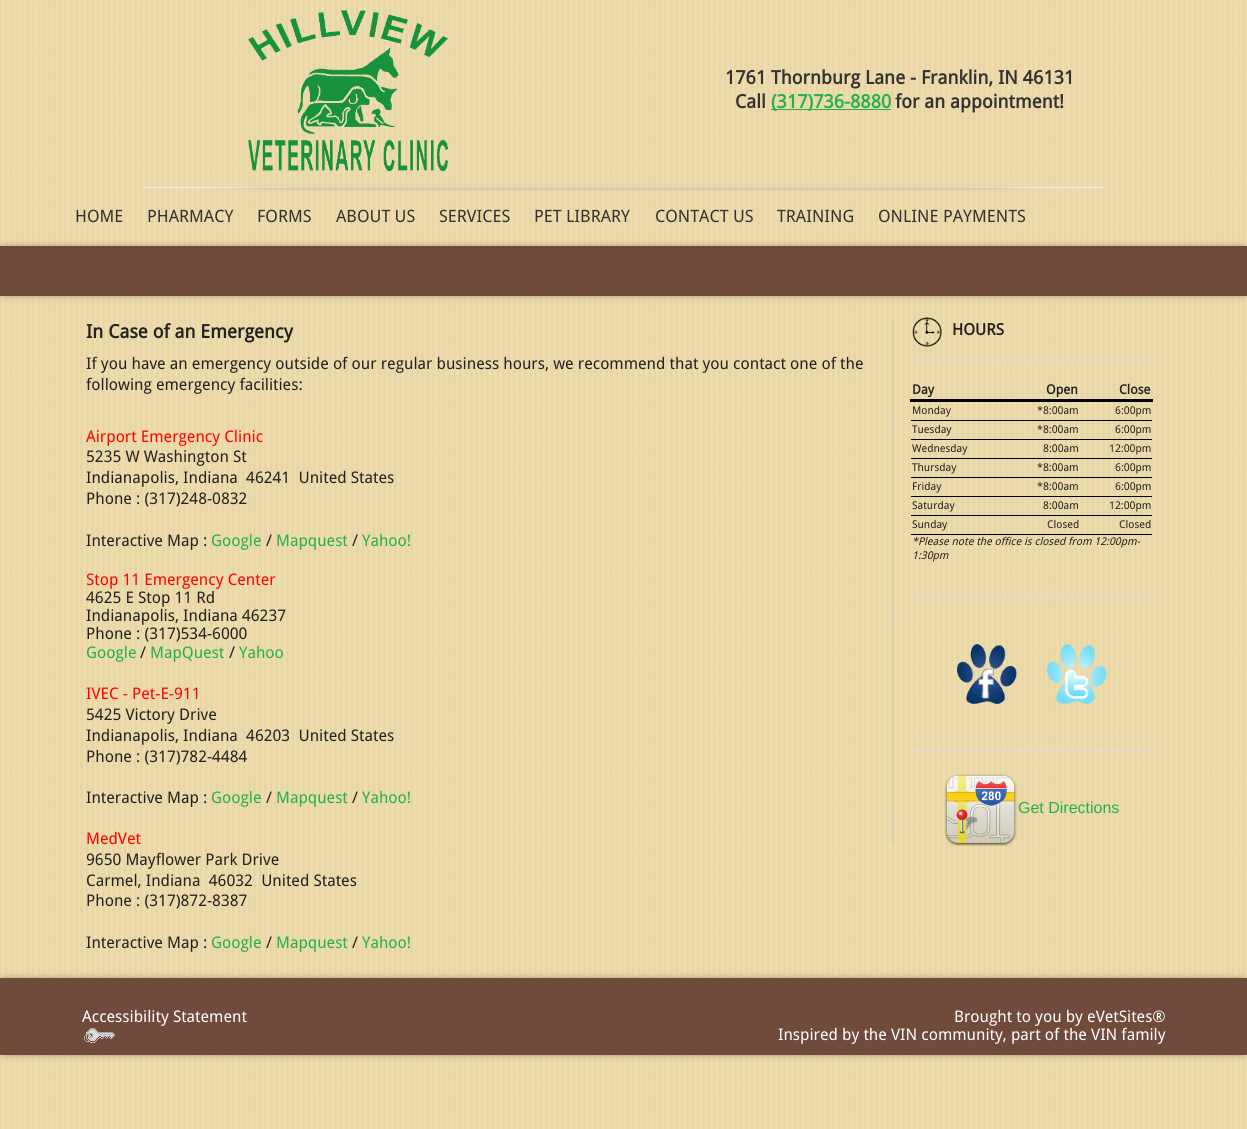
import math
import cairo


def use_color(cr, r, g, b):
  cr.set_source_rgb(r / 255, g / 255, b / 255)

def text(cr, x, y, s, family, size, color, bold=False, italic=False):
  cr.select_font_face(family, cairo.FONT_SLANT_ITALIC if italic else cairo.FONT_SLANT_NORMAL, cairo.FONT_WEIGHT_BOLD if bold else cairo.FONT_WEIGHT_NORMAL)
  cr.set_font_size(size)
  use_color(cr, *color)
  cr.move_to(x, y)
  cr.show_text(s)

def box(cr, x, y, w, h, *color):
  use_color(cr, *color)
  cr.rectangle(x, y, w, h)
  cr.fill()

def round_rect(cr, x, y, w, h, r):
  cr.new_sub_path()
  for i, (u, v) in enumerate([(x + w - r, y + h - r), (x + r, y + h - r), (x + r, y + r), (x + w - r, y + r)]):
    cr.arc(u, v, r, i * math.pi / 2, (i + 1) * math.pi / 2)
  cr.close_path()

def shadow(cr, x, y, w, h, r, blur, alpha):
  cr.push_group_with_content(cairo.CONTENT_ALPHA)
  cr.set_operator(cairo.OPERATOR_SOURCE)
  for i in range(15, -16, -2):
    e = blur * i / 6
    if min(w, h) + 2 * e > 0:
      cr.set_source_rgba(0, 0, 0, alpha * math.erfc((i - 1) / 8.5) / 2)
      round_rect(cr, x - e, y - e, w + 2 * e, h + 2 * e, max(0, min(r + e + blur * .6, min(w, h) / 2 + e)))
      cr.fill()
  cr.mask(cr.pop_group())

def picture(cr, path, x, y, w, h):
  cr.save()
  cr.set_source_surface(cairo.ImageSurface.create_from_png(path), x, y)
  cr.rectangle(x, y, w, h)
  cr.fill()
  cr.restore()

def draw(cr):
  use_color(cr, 255, 255, 255)
  cr.paint()
  picture(cr, "img_01.png", 0, 0, 1247, 1129)
  picture(cr, "img_02.png", 248, 10, 200, 161)
  box(cr, 771, 109, 120, 1, 35, 177, 77)
  picture(cr, "img_03.png", 144, 187, 960, 4)
  use_color(cr, 34, 34, 34)
  shadow(cr, 4, 250, 1239, 42, 0, 4.5, 1)
  box(cr, 0, 246, 1247, 50, 112, 74, 59)
  cr.new_path()
  cr.move_to(893.5, 320)
  cr.line_to(893.5, 846)
  use_color(cr, 186, 187, 187)
  cr.set_line_width(1)
  cr.set_dash([1, 1])
  cr.stroke()
  picture(cr, "img_04.png", 912, 317, 30, 30)
  box(cr, 912, 361, 240, 1, 221, 221, 221)
  box(cr, 910, 399, 243, 3, 0, 0, 0)
  box(cr, 911, 420, 241, 1, 0, 0, 0)
  box(cr, 911, 439, 241, 1, 0, 0, 0)
  box(cr, 911, 458, 241, 1, 0, 0, 0)
  box(cr, 911, 477, 241, 1, 0, 0, 0)
  box(cr, 911, 496, 241, 1, 0, 0, 0)
  box(cr, 911, 515, 241, 1, 0, 0, 0)
  box(cr, 911, 534, 241, 1, 0, 0, 0)
  box(cr, 912, 596, 240, 1, 221, 221, 221)
  picture(cr, "img_05.png", 957, 644, 60, 61)
  picture(cr, "img_06.png", 1047, 644, 60, 61)
  box(cr, 912, 751, 240, 1, 221, 221, 221)
  picture(cr, "img_07.png", 944, 774, 73, 72)
  use_color(cr, 34, 34, 34)
  shadow(cr, 4, 982, 1239, 69, 0, 4.5, 1)
  box(cr, 0, 978, 1247, 77, 112, 74, 59)
  picture(cr, "img_08.png", 84, 1028, 31, 15)
  text(cr, 725, 84, "1761 Thornburg Lane - Franklin, IN 46131", "Droid Sans", 18.7, (51, 51, 51), bold=True)
  text(cr, 735, 108, "Call", "Droid Sans", 18.7, (51, 51, 51), bold=True)
  text(cr, 771, 108, "(317)736-8880", "Droid Sans", 18.7, (35, 177, 77), bold=True)
  text(cr, 895, 108, "for an appointment!", "Droid Sans", 18.7, (51, 51, 51), bold=True)
  text(cr, 75, 222, "HOME", "Droid Sans", 17, (51, 51, 51))
  text(cr, 147, 222, "PHARMACY", "Droid Sans", 17, (51, 51, 51))
  text(cr, 257, 222, "FORMS", "Droid Sans", 17, (51, 51, 51))
  text(cr, 336, 222, "ABOUT US", "Droid Sans", 17, (51, 51, 51))
  text(cr, 439, 222, "SERVICES", "Droid Sans", 17, (51, 51, 51))
  text(cr, 534, 222, "PET LIBRARY", "Droid Sans", 17, (51, 51, 51))
  text(cr, 655, 222, "CONTACT US", "Droid Sans", 17, (51, 51, 51))
  text(cr, 777, 222, "TRAINING", "Droid Sans", 17, (51, 51, 51))
  text(cr, 878, 222, "ONLINE PAYMENTS", "Droid Sans", 17, (51, 51, 51))
  text(cr, 86, 338, "In Case of an Emergency", "Droid Sans", 18.7, (34, 34, 34), bold=True)
  text(cr, 86, 369, "If you have an emergency outside of our regular business hours, we recommend that you contact one of the", "Droid Sans", 16, (34, 34, 34))
  text(cr, 86, 390, "following emergency facilities:", "Droid Sans", 16, (34, 34, 34))
  text(cr, 86, 442, "Airport Emergency Clinic", "Droid Sans", 16, (255, 0, 0))
  text(cr, 86, 462, "5235 W Washington St", "Droid Sans", 16, (34, 34, 34))
  text(cr, 86, 483, "Indianapolis, Indiana  46241  United States", "Droid Sans", 16, (34, 34, 34))
  text(cr, 86, 504, "Phone : (317)248-0832", "Droid Sans", 16, (34, 34, 34))
  text(cr, 86, 546, "Interactive Map :", "Droid Sans", 16, (34, 34, 34))
  text(cr, 211, 546, "Google", "Droid Sans", 16, (35, 177, 77))
  text(cr, 266, 546, "/", "Droid Sans", 16, (34, 34, 34))
  text(cr, 276, 546, "Mapquest", "Droid Sans", 16, (35, 177, 77))
  text(cr, 352, 546, "/", "Droid Sans", 16, (34, 34, 34))
  text(cr, 362, 546, "Yahoo!", "Droid Sans", 16, (35, 177, 77))
  text(cr, 86, 585, "Stop 11 Emergency Center", "Droid Sans", 16, (255, 0, 0))
  text(cr, 86, 603, "4625 E Stop 11 Rd", "Droid Sans", 16, (34, 34, 34))
  text(cr, 86, 621, "Indianapolis, Indiana 46237", "Droid Sans", 16, (34, 34, 34))
  text(cr, 86, 639, "Phone : (317)534-6000", "Droid Sans", 16, (34, 34, 34))
  text(cr, 86, 658, "Google", "Droid Sans", 16, (35, 177, 77))
  text(cr, 140, 658, "/", "Droid Sans", 16, (34, 34, 34))
  text(cr, 150, 658, "MapQuest", "Droid Sans", 16, (35, 177, 77))
  text(cr, 229, 658, "/", "Droid Sans", 16, (34, 34, 34))
  text(cr, 239, 658, "Yahoo", "Droid Sans", 16, (35, 177, 77))
  text(cr, 86, 699, "IVEC - Pet-E-911", "Droid Sans", 16, (255, 0, 0))
  text(cr, 86, 720, "5425 Victory Drive", "Droid Sans", 16, (34, 34, 34))
  text(cr, 86, 741, "Indianapolis, Indiana  46203  United States", "Droid Sans", 16, (34, 34, 34))
  text(cr, 86, 762, "Phone : (317)782-4484", "Droid Sans", 16, (34, 34, 34))
  text(cr, 86, 803, "Interactive Map :", "Droid Sans", 16, (34, 34, 34))
  text(cr, 211, 803, "Google", "Droid Sans", 16, (35, 177, 77))
  text(cr, 266, 803, "/", "Droid Sans", 16, (34, 34, 34))
  text(cr, 276, 803, "Mapquest", "Droid Sans", 16, (35, 177, 77))
  text(cr, 352, 803, "/", "Droid Sans", 16, (34, 34, 34))
  text(cr, 362, 803, "Yahoo!", "Droid Sans", 16, (35, 177, 77))
  text(cr, 86, 844, "MedVet", "Droid Sans", 16, (255, 0, 0))
  text(cr, 86, 865, "9650 Mayflower Park Drive", "Droid Sans", 16, (34, 34, 34))
  text(cr, 86, 886, "Carmel, Indiana  46032  United States", "Droid Sans", 16, (34, 34, 34))
  text(cr, 86, 906, "Phone : (317)872-8387", "Droid Sans", 16, (34, 34, 34))
  text(cr, 86, 948, "Interactive Map :", "Droid Sans", 16, (34, 34, 34))
  text(cr, 211, 948, "Google", "Droid Sans", 16, (35, 177, 77))
  text(cr, 266, 948, "/", "Droid Sans", 16, (34, 34, 34))
  text(cr, 276, 948, "Mapquest", "Droid Sans", 16, (35, 177, 77))
  text(cr, 352, 948, "/", "Droid Sans", 16, (34, 34, 34))
  text(cr, 362, 948, "Yahoo!", "Droid Sans", 16, (35, 177, 77))
  text(cr, 952, 335, "HOURS", "Droid Sans", 16, (34, 34, 34), bold=True)
  text(cr, 912, 394, "Day", "Droid Sans", 13, (34, 34, 34), bold=True)
  text(cr, 1046, 394, "Open", "Droid Sans", 13, (34, 34, 34), bold=True)
  text(cr, 1119, 394, "Close", "Droid Sans", 13, (34, 34, 34), bold=True)
  text(cr, 912, 414, "Monday", "Droid Sans", 10.7, (34, 34, 34))
  text(cr, 1037, 414, "*8:00am", "Droid Sans", 10.7, (34, 34, 34))
  text(cr, 1115, 414, "6:00pm", "Droid Sans", 10.7, (34, 34, 34))
  text(cr, 912, 433, "Tuesday", "Droid Sans", 10.7, (34, 34, 34))
  text(cr, 1037, 433, "*8:00am", "Droid Sans", 10.7, (34, 34, 34))
  text(cr, 1115, 433, "6:00pm", "Droid Sans", 10.7, (34, 34, 34))
  text(cr, 912, 452, "Wednesday", "Droid Sans", 10.7, (34, 34, 34))
  text(cr, 1043, 452, "8:00am", "Droid Sans", 10.7, (34, 34, 34))
  text(cr, 1109, 452, "12:00pm", "Droid Sans", 10.7, (34, 34, 34))
  text(cr, 912, 471, "Thursday", "Droid Sans", 10.7, (34, 34, 34))
  text(cr, 1037, 471, "*8:00am", "Droid Sans", 10.7, (34, 34, 34))
  text(cr, 1115, 471, "6:00pm", "Droid Sans", 10.7, (34, 34, 34))
  text(cr, 912, 490, "Friday", "Droid Sans", 10.7, (34, 34, 34))
  text(cr, 1037, 490, "*8:00am", "Droid Sans", 10.7, (34, 34, 34))
  text(cr, 1115, 490, "6:00pm", "Droid Sans", 10.7, (34, 34, 34))
  text(cr, 912, 509, "Saturday", "Droid Sans", 10.7, (34, 34, 34))
  text(cr, 1043, 509, "8:00am", "Droid Sans", 10.7, (34, 34, 34))
  text(cr, 1109, 509, "12:00pm", "Droid Sans", 10.7, (34, 34, 34))
  text(cr, 912, 528, "Sunday", "Droid Sans", 10.7, (34, 34, 34))
  text(cr, 1047, 528, "Closed", "Droid Sans", 10.7, (34, 34, 34))
  text(cr, 1119, 528, "Closed", "Droid Sans", 10.7, (34, 34, 34))
  text(cr, 912, 545, "*Please note the office is closed from 12:00pm-", "Droid Sans", 10.7, (34, 34, 34), italic=True)
  text(cr, 912, 559, "1:30pm", "Droid Sans", 10.7, (34, 34, 34), italic=True)
  text(cr, 1018, 813, "Get Directions", "Liberation Sans", 16, (35, 177, 77))
  text(cr, 82, 1022, "Accessibility Statement", "Droid Sans", 16, (255, 255, 255))
  text(cr, 954, 1022, "Brought to you by eVetSites®", "Droid Sans", 16, (255, 255, 255))
  text(cr, 778, 1040, "Inspired by the VIN community, part of the VIN family", "Droid Sans", 16, (255, 255, 255))


surface = cairo.ImageSurface(cairo.FORMAT_RGB24, 1247, 1129)
cr = cairo.Context(surface)
options = cairo.FontOptions()
options.set_hint_metrics(cairo.HINT_METRICS_OFF)
options.set_hint_style(cairo.HINT_STYLE_NONE)
cr.set_font_options(options)
cr.set_miter_limit(4)
draw(cr)
surface.write_to_png("out.png")
